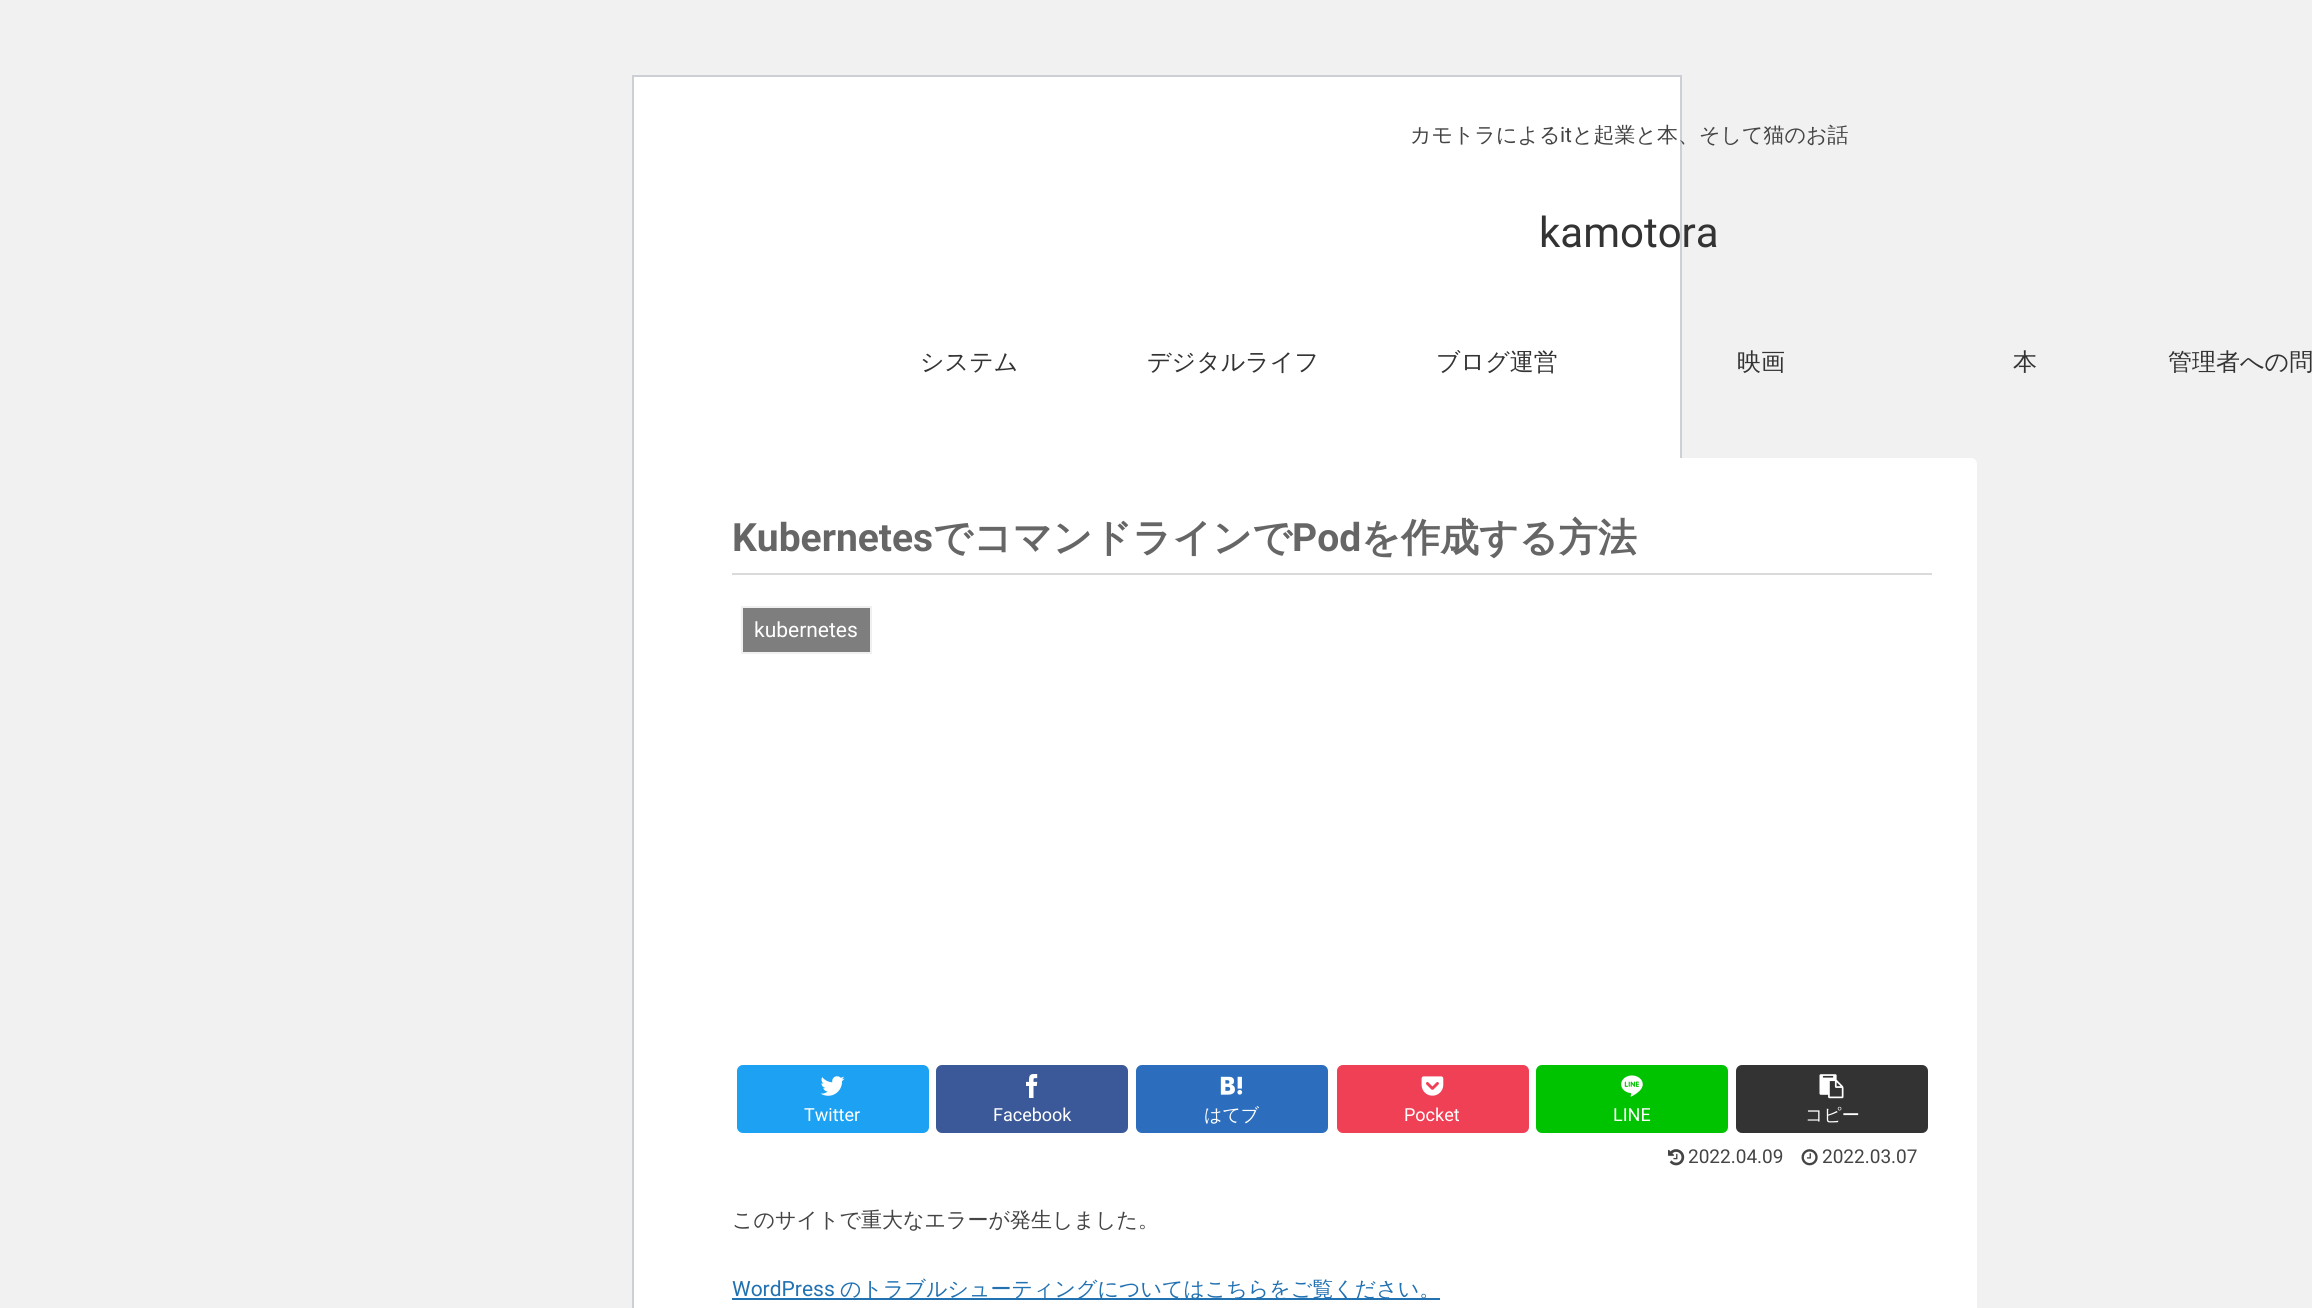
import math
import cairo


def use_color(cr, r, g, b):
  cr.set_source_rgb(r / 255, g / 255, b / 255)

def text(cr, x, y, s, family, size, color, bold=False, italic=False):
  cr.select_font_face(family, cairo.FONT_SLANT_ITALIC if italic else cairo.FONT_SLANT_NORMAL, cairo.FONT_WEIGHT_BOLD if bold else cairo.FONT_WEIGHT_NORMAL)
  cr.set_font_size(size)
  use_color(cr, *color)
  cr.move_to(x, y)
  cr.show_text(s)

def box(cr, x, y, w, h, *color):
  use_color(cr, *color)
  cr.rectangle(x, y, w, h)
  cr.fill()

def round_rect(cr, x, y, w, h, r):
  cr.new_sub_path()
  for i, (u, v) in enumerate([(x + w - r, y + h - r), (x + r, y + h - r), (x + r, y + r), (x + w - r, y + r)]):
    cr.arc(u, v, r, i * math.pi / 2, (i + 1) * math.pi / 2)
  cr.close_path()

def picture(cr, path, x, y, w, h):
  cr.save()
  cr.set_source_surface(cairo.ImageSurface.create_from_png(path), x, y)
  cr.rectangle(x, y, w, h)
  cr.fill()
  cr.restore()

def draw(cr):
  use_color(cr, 241, 241, 241)
  cr.paint()
  use_color(cr, 255, 255, 255)
  cr.rectangle(633, 76, 1048, 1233)
  cr.fill_preserve()
  use_color(cr, 204, 208, 212)
  cr.stroke()
  use_color(cr, 255, 255, 255)
  round_rect(cr, 687, 458, 1290, 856, 6)
  cr.fill()
  box(cr, 732, 573, 1200, 2, 218, 218, 218)
  use_color(cr, 126, 126, 126)
  cr.rectangle(742, 607, 129, 46)
  cr.fill_preserve()
  use_color(cr, 240, 240, 240)
  cr.stroke()
  use_color(cr, 29, 161, 242)
  round_rect(cr, 737, 1065, 192, 68, 6)
  cr.fill()
  picture(cr, "img_01.png", 820, 1076, 25, 20)
  use_color(cr, 59, 89, 152)
  round_rect(cr, 936, 1065, 192, 68, 6)
  cr.fill()
  picture(cr, "img_02.png", 1026, 1074, 12, 24)
  use_color(cr, 44, 110, 189)
  round_rect(cr, 1136, 1065, 192, 68, 6)
  cr.fill()
  picture(cr, "img_03.png", 1220, 1076, 23, 19)
  use_color(cr, 239, 64, 86)
  round_rect(cr, 1337, 1065, 192, 68, 6)
  cr.fill()
  picture(cr, "img_04.png", 1421, 1076, 23, 20)
  use_color(cr, 0, 195, 0)
  round_rect(cr, 1536, 1065, 192, 68, 6)
  cr.fill()
  picture(cr, "img_05.png", 1621, 1075, 22, 22)
  use_color(cr, 51, 51, 51)
  round_rect(cr, 1736, 1065, 192, 68, 6)
  cr.fill()
  picture(cr, "img_06.png", 1819, 1074, 25, 25)
  picture(cr, "img_07.png", 1668, 1149, 17, 17)
  picture(cr, "img_08.png", 1801, 1149, 17, 17)
  box(cr, 732, 1298, 708, 2, 34, 113, 177)
  text(cr, 1410, 142, "カモトラによる", "WenQuanYi Zen Hei Medium", 21, (68, 68, 68))
  text(cr, 1560, 142, "it", "Roboto", 21, (68, 68, 68))
  text(cr, 1572, 142, "と起業と本、そして猫のお話", "WenQuanYi Zen Hei Medium", 21, (68, 68, 68))
  text(cr, 1539, 247, "kamotora", "Roboto", 42, (51, 51, 51))
  text(cr, 920, 370, "システム", "WenQuanYi Zen Hei Medium", 24, (51, 51, 51))
  text(cr, 1147, 370, "デジタルライフ", "WenQuanYi Zen Hei Medium", 24, (51, 51, 51))
  text(cr, 1436, 370, "ブログ運営", "WenQuanYi Zen Hei Medium", 24, (51, 51, 51))
  text(cr, 1737, 370, "映画", "WenQuanYi Zen Hei Medium", 24, (51, 51, 51))
  text(cr, 2013, 370, "本", "WenQuanYi Zen Hei Medium", 24, (51, 51, 51))
  text(cr, 2168, 370, "管理者への問", "WenQuanYi Zen Hei Medium", 24, (51, 51, 51))
  text(cr, 732, 551, "Kubernetes", "Roboto", 39, (102, 102, 102), bold=True)
  text(cr, 933, 551, "でコマンドラインで", "WenQuanYi Zen Hei", 39, (102, 102, 102), bold=True)
  text(cr, 1292, 551, "Pod", "Roboto", 39, (102, 102, 102), bold=True)
  text(cr, 1361, 551, "を作成する方法", "WenQuanYi Zen Hei", 39, (102, 102, 102), bold=True)
  text(cr, 754, 637, "kubernetes", "Roboto", 21, (255, 255, 255))
  text(cr, 804, 1121, "Twitter", "Roboto", 18, (255, 255, 255))
  text(cr, 993, 1121, "Facebook", "Roboto", 18, (255, 255, 255))
  text(cr, 1204, 1121, "はてブ", "WenQuanYi Zen Hei Medium", 18, (255, 255, 255))
  text(cr, 1404, 1121, "Pocket", "Roboto", 18, (255, 255, 255))
  text(cr, 1613, 1121, "LINE", "Roboto", 18, (255, 255, 255))
  text(cr, 1805, 1121, "コピー", "WenQuanYi Zen Hei Medium", 18, (255, 255, 255))
  text(cr, 1688, 1163, "2022.04.09", "Roboto", 19, (68, 68, 68))
  text(cr, 1822, 1163, "2022.03.07", "Roboto", 19, (68, 68, 68))
  text(cr, 732, 1227, "このサイトで重大なエラーが発生しました。", "WenQuanYi Zen Hei Medium", 21, (68, 68, 68))
  text(cr, 732, 1296, "WordPress", "Roboto", 21, (34, 113, 177))
  text(cr, 840, 1296, "のトラブルシューティングについてはこちらをご覧ください。", "WenQuanYi Zen Hei Medium", 21, (34, 113, 177))


surface = cairo.ImageSurface(cairo.FORMAT_RGB24, 2312, 1308)
cr = cairo.Context(surface)
options = cairo.FontOptions()
options.set_hint_metrics(cairo.HINT_METRICS_OFF)
options.set_hint_style(cairo.HINT_STYLE_NONE)
cr.set_font_options(options)
cr.set_miter_limit(4)
draw(cr)
surface.write_to_png("out.png")
